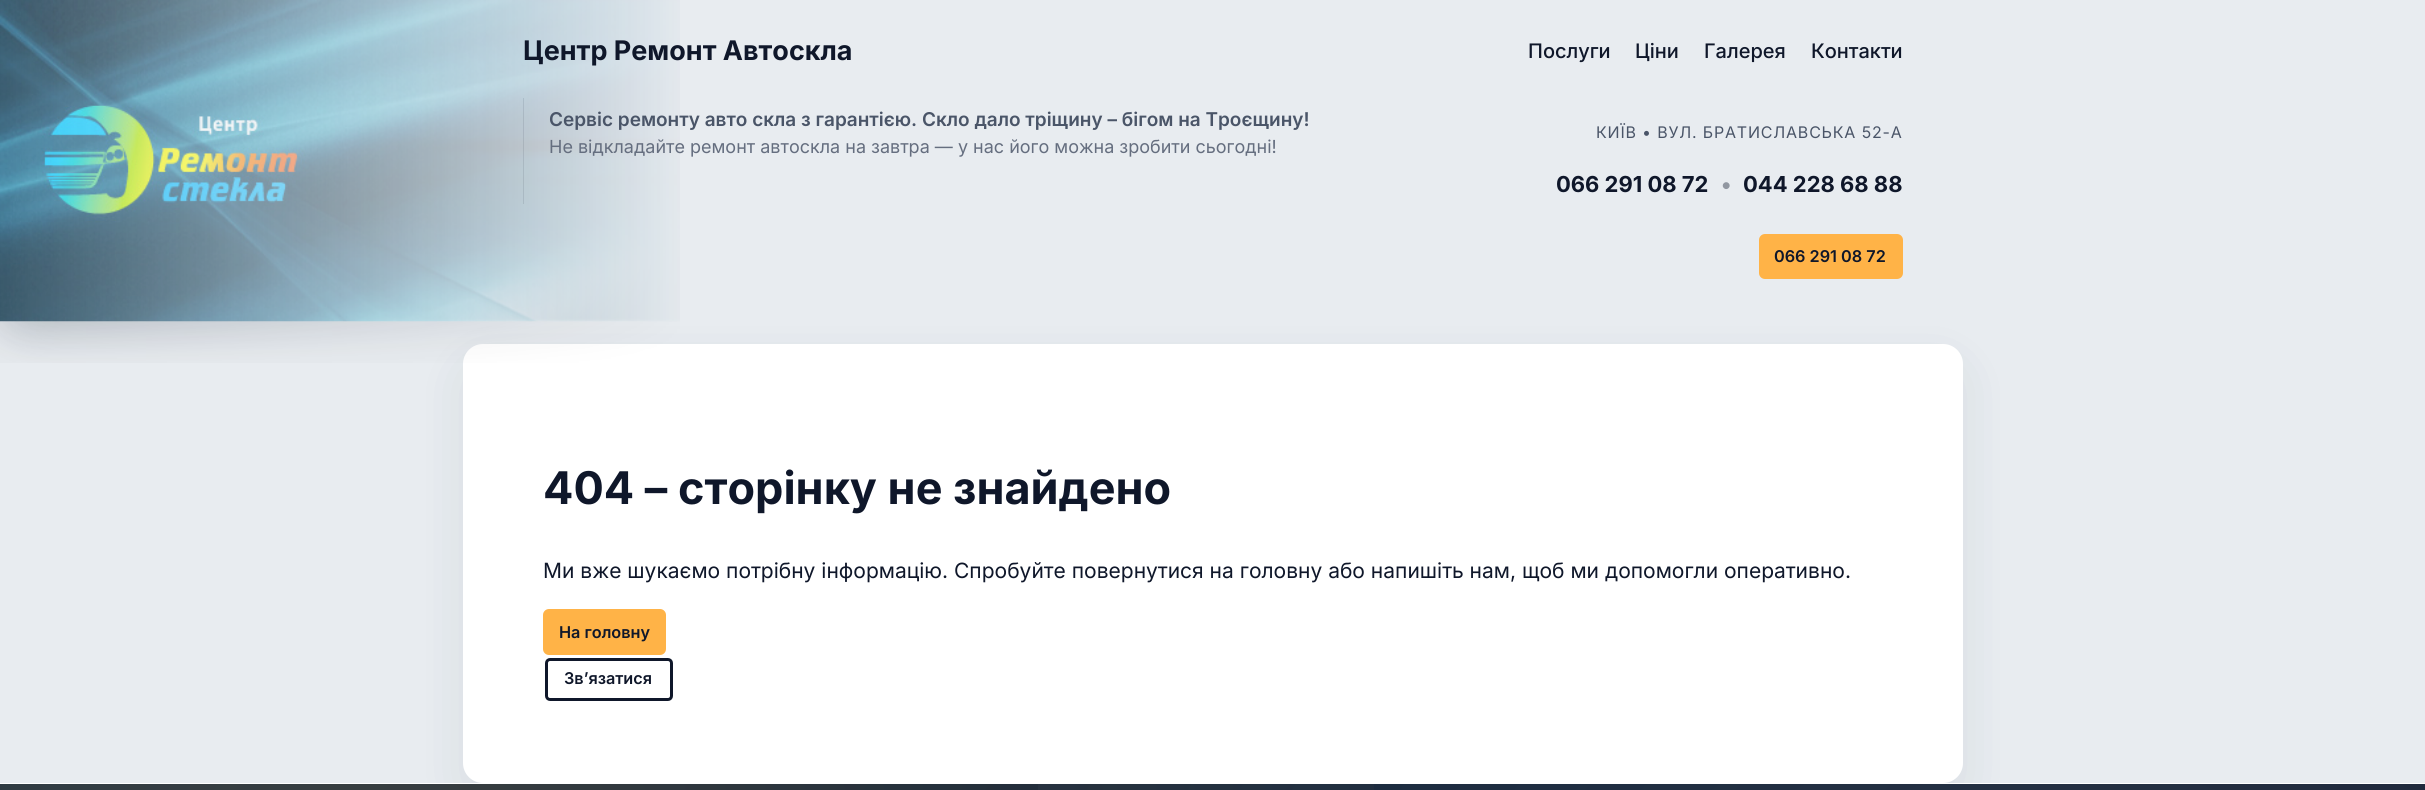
import math
import cairo


def use_color(cr, r, g, b):
  cr.set_source_rgb(r / 255, g / 255, b / 255)

def text(cr, x, y, s, family, size, color, bold=False, italic=False):
  cr.select_font_face(family, cairo.FONT_SLANT_ITALIC if italic else cairo.FONT_SLANT_NORMAL, cairo.FONT_WEIGHT_BOLD if bold else cairo.FONT_WEIGHT_NORMAL)
  cr.set_font_size(size)
  use_color(cr, *color)
  cr.move_to(x, y)
  cr.show_text(s)

def spaced_text(cr, x, y, s, letter, word):
  cr.move_to(x, y)
  for ch in s:
    cr.show_text(ch)
    cr.rel_move_to(letter + word * (ch == ' '), 0)

def box(cr, x, y, w, h, *color):
  use_color(cr, *color)
  cr.rectangle(x, y, w, h)
  cr.fill()

def round_rect(cr, x, y, w, h, r):
  cr.new_sub_path()
  for i, (u, v) in enumerate([(x + w - r, y + h - r), (x + r, y + h - r), (x + r, y + r), (x + w - r, y + r)]):
    cr.arc(u, v, r, i * math.pi / 2, (i + 1) * math.pi / 2)
  cr.close_path()

def shadow(cr, x, y, w, h, r, blur, alpha):
  cr.push_group_with_content(cairo.CONTENT_ALPHA)
  cr.set_operator(cairo.OPERATOR_SOURCE)
  for i in range(15, -16, -2):
    e = blur * i / 6
    if min(w, h) + 2 * e > 0:
      cr.set_source_rgba(0, 0, 0, alpha * math.erfc((i - 1) / 8.5) / 2)
      round_rect(cr, x - e, y - e, w + 2 * e, h + 2 * e, max(0, min(r + e + blur * .6, min(w, h) / 2 + e)))
      cr.fill()
  cr.mask(cr.pop_group())

def picture(cr, path, x, y, w, h):
  cr.save()
  cr.set_source_surface(cairo.ImageSurface.create_from_png(path), x, y)
  cr.rectangle(x, y, w, h)
  cr.fill()
  cr.restore()

def draw(cr):
  use_color(cr, 232, 236, 240)
  cr.paint()
  use_color(cr, 15, 29, 51)
  shadow(cr, 463, 363, 1500, 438, 20, 25, 0.08)
  use_color(cr, 255, 255, 255)
  round_rect(cr, 463, 344, 1500, 439, 20)
  cr.fill()
  picture(cr, "img_01.png", 0, 0, 680, 363)
  cr.set_source_rgba(0.059, 0.09, 0.165, 0.1)
  cr.rectangle(523, 98, 1, 106)
  cr.fill()
  use_color(cr, 255, 179, 71)
  round_rect(cr, 1759, 234, 144, 45, 6)
  cr.fill()
  round_rect(cr, 543, 609, 123, 46, 6)
  cr.fill()
  round_rect(cr, 546.5, 659.5, 125, 40, 3.5)
  use_color(cr, 15, 23, 42)
  cr.set_line_width(3)
  cr.stroke()
  gradient = cairo.LinearGradient(456, 328, 1969, 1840)
  gradient.add_color_stop_rgba(0, 0.078, 0.169, 0.259, 1)
  gradient.add_color_stop_rgba(1, 0.059, 0.09, 0.165, 1)
  cr.set_source(gradient)
  cr.rectangle(0, 784, 2425, 6)
  cr.fill()
  box(cr, 0, 783, 2425, 1, 255, 255, 255)
  gradient = cairo.RadialGradient(2061, 1264, 0, 2061, 1264, 2116)
  gradient.add_color_stop_rgba(0, 1, 1, 1, 0.12)
  gradient.add_color_stop_rgba(0.65, 1, 1, 1, 0)
  cr.set_source(gradient)
  cr.rectangle(1038, 784, 1387, 6)
  cr.fill()
  gradient = cairo.RadialGradient(364, 904, 0, 364, 904, 2116)
  gradient.add_color_stop_rgba(0, 1, 0.702, 0.278, 0.17)
  gradient.add_color_stop_rgba(0.55, 1, 0.702, 0.278, 0)
  cr.set_source(gradient)
  cr.rectangle(0, 784, 1374, 6)
  cr.fill()
  text(cr, 523, 60, "Центр Ремонт Автоскла", "Inter", 27, (15, 23, 42), bold=True)
  text(cr, 1528, 58, "Послуги", "Inter Medium", 20, (15, 23, 42))
  text(cr, 1635, 58, "Ціни", "Inter Medium", 20, (15, 23, 42))
  text(cr, 1704, 58, "Галерея", "Inter Medium", 20, (15, 23, 42))
  text(cr, 1811, 58, "Контакти", "Inter Medium", 20, (15, 23, 42))
  text(cr, 549, 126, "Сервіс ремонту авто скла з гарантією. Скло дало тріщину – бігом на Троєщину!", "Inter SemiBold", 19, (74, 85, 104))
  text(cr, 549, 153, "Не відкладайте ремонт автоскла на завтра — у нас його можна зробити сьогодні!", "Inter", 18, (101, 110, 127))
  cr.set_font_size(16)
  use_color(cr, 74, 85, 104)
  spaced_text(cr, 1596, 138, "КИЇВ • ВУЛ. БРАТИСЛАВСЬКА 52-А", 0.8, 0)
  text(cr, 1556, 192, "066 291 08 72", "Inter", 22, (15, 23, 42), bold=True)
  text(cr, 1721, 192, "•", "Inter", 22, (145, 151, 161), bold=True)
  text(cr, 1743, 192, "044 228 68 88", "Inter", 22, (15, 23, 42), bold=True)
  text(cr, 1774, 262, "066 291 08 72", "Inter SemiBold", 16.25, (15, 23, 42))
  text(cr, 543, 504, "404 – сторінку не знайдено", "Inter", 45, (15, 23, 42), bold=True)
  text(cr, 543, 578, "Ми вже шукаємо потрібну інформацію. Спробуйте повернутися на головну або напишіть нам, щоб ми допомогли оперативно.", "Inter", 21, (15, 23, 42))
  text(cr, 559, 638, "На головну", "Inter SemiBold", 16.25, (15, 23, 42))
  text(cr, 564, 684, "Зв’язатися", "Inter SemiBold", 16.25, (15, 23, 42))


surface = cairo.ImageSurface(cairo.FORMAT_RGB24, 2425, 790)
cr = cairo.Context(surface)
options = cairo.FontOptions()
options.set_hint_metrics(cairo.HINT_METRICS_OFF)
options.set_hint_style(cairo.HINT_STYLE_NONE)
cr.set_font_options(options)
cr.set_miter_limit(4)
draw(cr)
surface.write_to_png("out.png")
